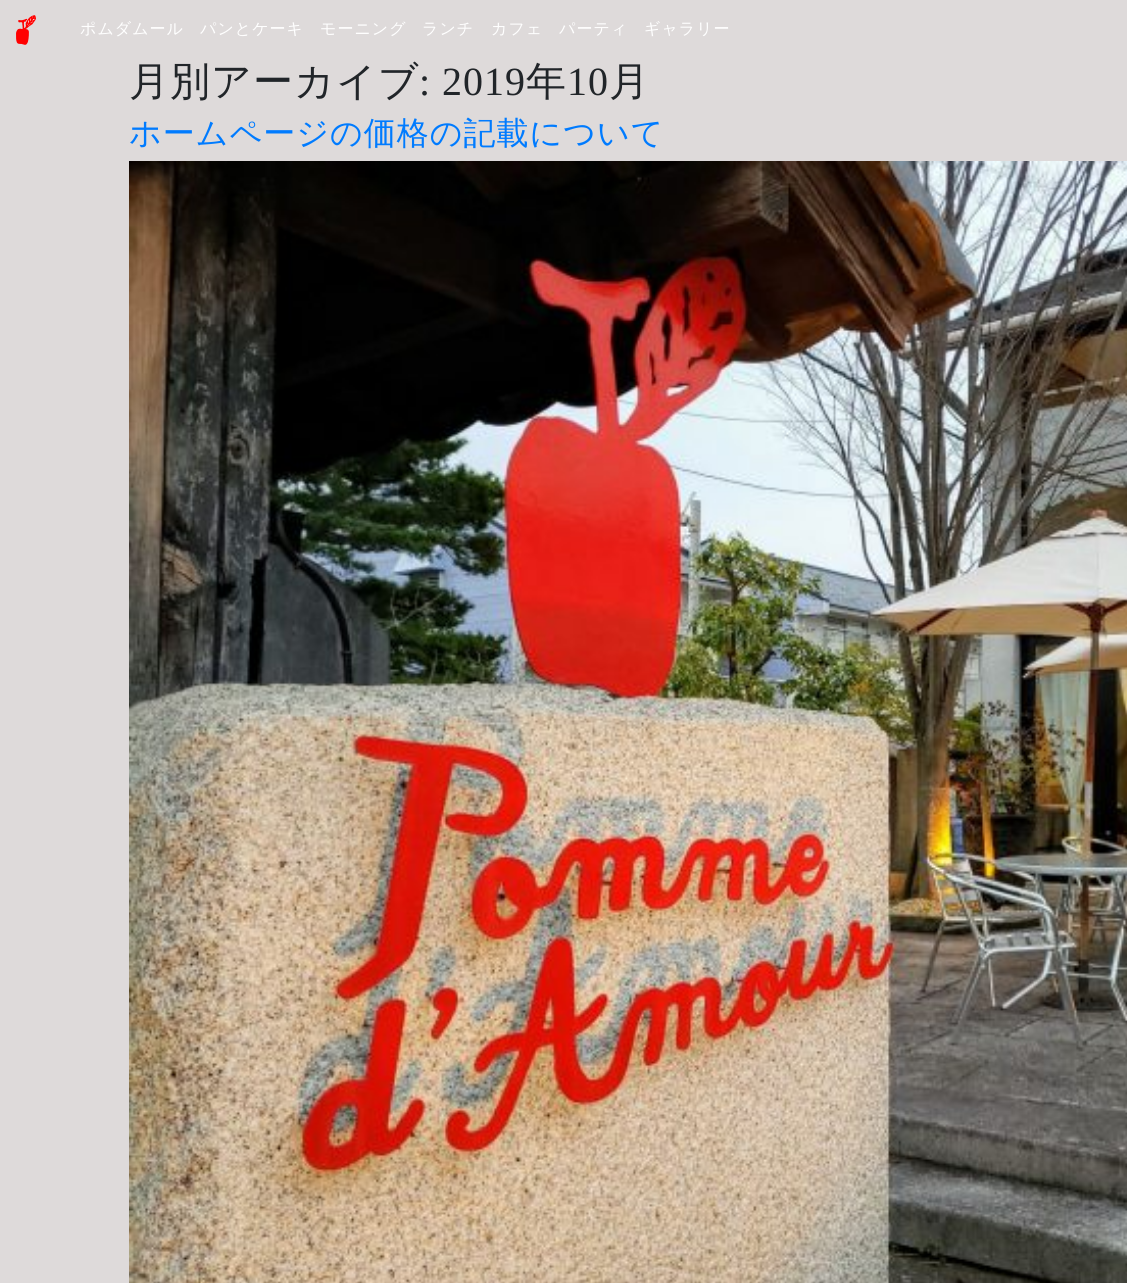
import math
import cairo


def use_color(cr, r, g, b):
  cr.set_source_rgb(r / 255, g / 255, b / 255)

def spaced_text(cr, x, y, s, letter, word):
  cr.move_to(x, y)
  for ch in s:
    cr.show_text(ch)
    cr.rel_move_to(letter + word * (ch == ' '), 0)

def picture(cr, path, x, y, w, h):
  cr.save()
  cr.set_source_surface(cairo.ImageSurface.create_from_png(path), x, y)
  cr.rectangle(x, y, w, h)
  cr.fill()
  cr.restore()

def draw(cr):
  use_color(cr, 222, 218, 218)
  cr.paint()
  picture(cr, "img_01.png", 16, 15, 20, 30)
  picture(cr, "img_02.png", 129, 161, 998, 1122)
  cr.select_font_face("WenQuanYi Zen Hei Medium")
  cr.set_font_size(16)
  use_color(cr, 255, 255, 255)
  spaced_text(cr, 80, 34, "ポムダムール", 1, 0)
  spaced_text(cr, 200, 34, "パンとケーキ", 1, 0)
  spaced_text(cr, 320, 34, "モーニング", 1, 0)
  spaced_text(cr, 422, 34, "ランチ", 1, 0)
  spaced_text(cr, 491, 34, "カフェ", 1, 0)
  spaced_text(cr, 559, 34, "パーティ", 1, 0)
  spaced_text(cr, 644, 34, "ギャラリー", 1, 0)
  cr.set_font_size(40)
  use_color(cr, 33, 37, 41)
  spaced_text(cr, 129, 95, "月別アーカイブ", 1, 0)
  cr.select_font_face("Liberation Serif")
  spaced_text(cr, 419, 95, ": 2019", 1, 0)
  cr.select_font_face("WenQuanYi Zen Hei Medium")
  spaced_text(cr, 526, 95, "年", 1, 0)
  cr.select_font_face("Liberation Serif")
  spaced_text(cr, 567, 95, "10", 1, 0)
  cr.select_font_face("WenQuanYi Zen Hei Medium")
  spaced_text(cr, 609, 95, "月", 1, 0)
  cr.set_font_size(32)
  use_color(cr, 0, 123, 255)
  spaced_text(cr, 129, 144, "ホームページの価格の記載について", 1, 0)


surface = cairo.ImageSurface(cairo.FORMAT_RGB24, 1127, 1283)
cr = cairo.Context(surface)
options = cairo.FontOptions()
options.set_hint_metrics(cairo.HINT_METRICS_OFF)
options.set_hint_style(cairo.HINT_STYLE_NONE)
cr.set_font_options(options)
cr.set_miter_limit(4)
draw(cr)
surface.write_to_png("out.png")
